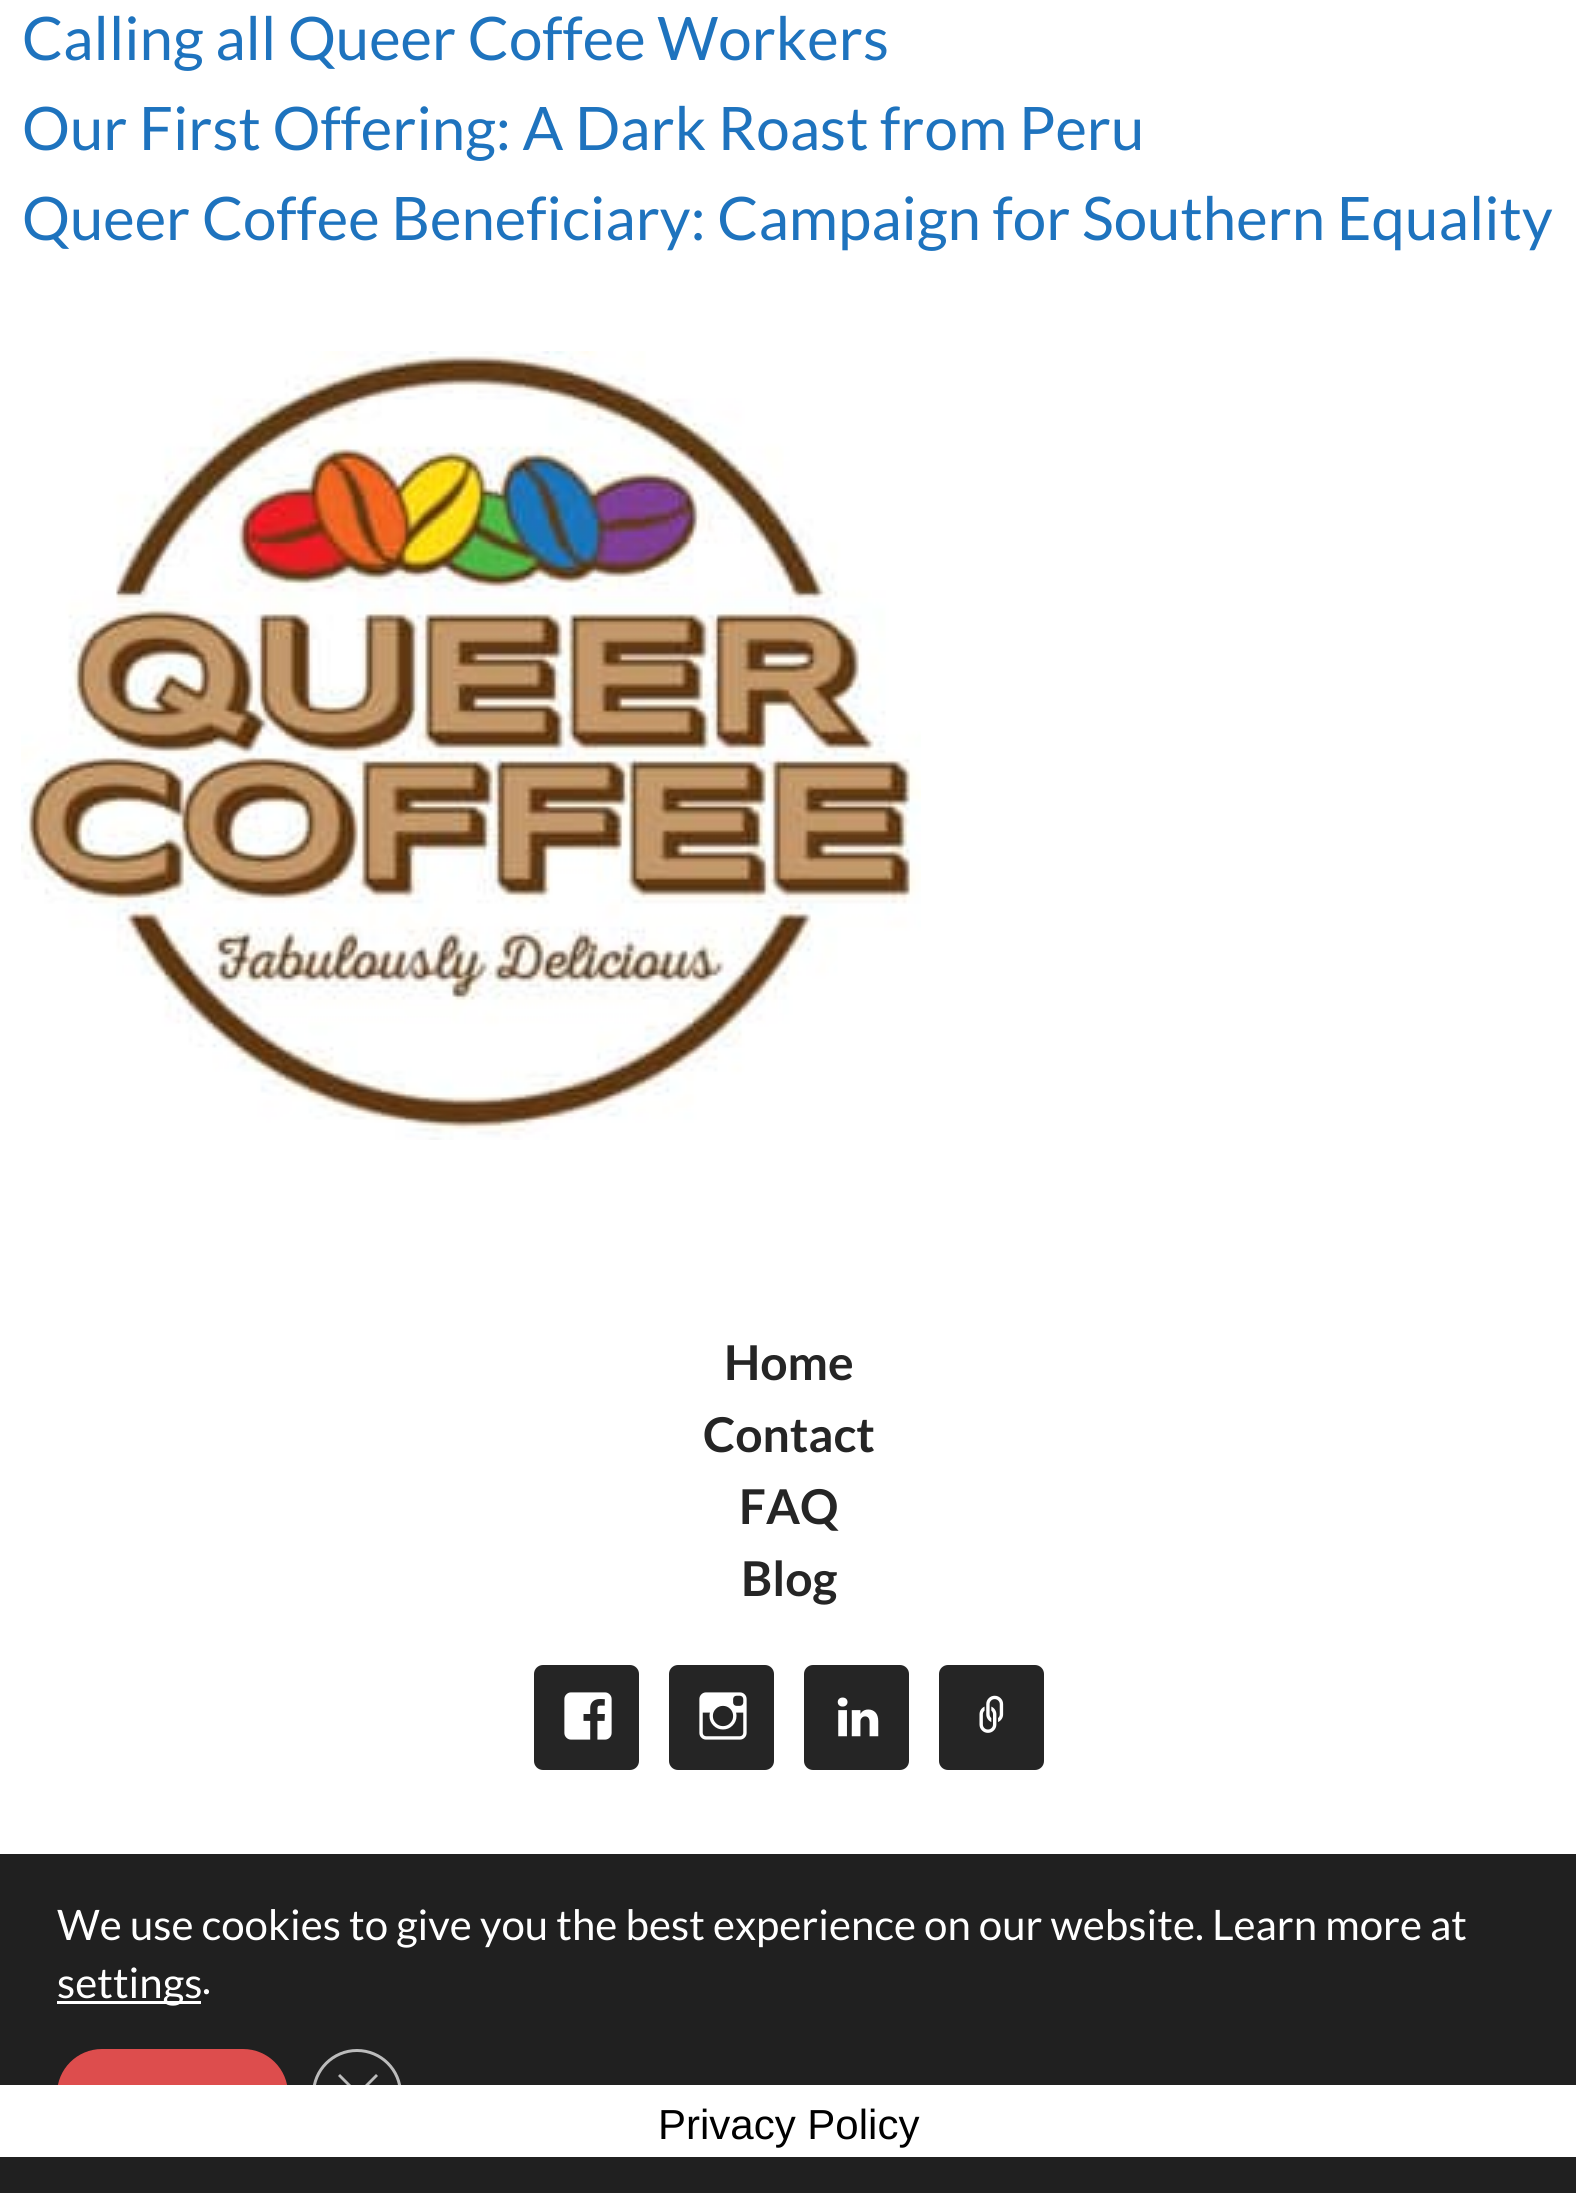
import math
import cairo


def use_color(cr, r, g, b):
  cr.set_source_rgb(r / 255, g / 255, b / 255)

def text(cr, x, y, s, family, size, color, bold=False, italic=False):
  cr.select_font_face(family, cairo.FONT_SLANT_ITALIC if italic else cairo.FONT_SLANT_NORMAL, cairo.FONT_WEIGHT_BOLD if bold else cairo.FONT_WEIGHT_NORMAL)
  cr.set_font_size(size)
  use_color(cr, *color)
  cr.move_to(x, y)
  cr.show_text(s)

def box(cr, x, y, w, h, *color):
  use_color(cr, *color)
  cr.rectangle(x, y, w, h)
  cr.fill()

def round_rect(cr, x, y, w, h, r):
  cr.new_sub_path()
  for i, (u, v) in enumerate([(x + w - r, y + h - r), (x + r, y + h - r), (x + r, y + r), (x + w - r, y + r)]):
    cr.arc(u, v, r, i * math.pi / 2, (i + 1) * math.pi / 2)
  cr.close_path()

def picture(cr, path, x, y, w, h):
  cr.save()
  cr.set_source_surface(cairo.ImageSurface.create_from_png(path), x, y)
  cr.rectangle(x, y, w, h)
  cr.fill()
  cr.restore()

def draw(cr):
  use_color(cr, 255, 255, 255)
  cr.paint()
  picture(cr, "img_01.png", 21, 351, 900, 789)
  use_color(cr, 37, 37, 37)
  round_rect(cr, 534, 1665, 105, 105, 9)
  cr.fill()
  picture(cr, "img_02.png", 564, 1692, 48, 48)
  round_rect(cr, 669, 1665, 105, 105, 9)
  cr.fill()
  picture(cr, "img_03.png", 699, 1692, 48, 48)
  round_rect(cr, 804, 1665, 105, 105, 9)
  cr.fill()
  picture(cr, "img_04.png", 837, 1697, 42, 40)
  round_rect(cr, 939, 1665, 105, 105, 9)
  cr.fill()
  picture(cr, "img_05.png", 979, 1695, 25, 38)
  box(cr, 0, 1854, 1576, 339, 32, 32, 32)
  box(cr, 57, 2001, 144, 3, 255, 255, 255)
  use_color(cr, 221, 77, 77)
  round_rect(cr, 57, 2049, 231, 90, 45)
  cr.fill()
  cr.arc(357, 2094, 43.5, 0, 2 * math.pi)
  use_color(cr, 188, 188, 188)
  cr.set_line_width(3)
  cr.stroke()
  cr.new_path()
  cr.move_to(376, 2074)
  cr.line_to(378, 2076)
  cr.line_to(340, 2114)
  cr.line_to(338, 2112)
  cr.close_path()
  cr.fill()
  cr.new_path()
  cr.move_to(338, 2076)
  cr.line_to(340, 2074)
  cr.line_to(378, 2112)
  cr.line_to(376, 2114)
  cr.close_path()
  cr.fill()
  box(cr, 0, 2085, 1576, 72, 255, 255, 255)
  text(cr, 22, 60, "Calling all Queer Coffee Workers", "Lato", 60, (30, 115, 190))
  text(cr, 22, 150, "Our First Offering: A Dark Roast from Peru", "Lato", 60, (30, 115, 190))
  text(cr, 22, 240, "Queer Coffee Beneficiary: Campaign for Southern Equality", "Lato", 60, (30, 115, 190))
  text(cr, 724, 1380, "Home", "Lato", 48, (37, 37, 37), bold=True)
  text(cr, 703, 1452, "Contact", "Lato", 48, (37, 37, 37), bold=True)
  text(cr, 739, 1524, "FAQ", "Lato", 48, (37, 37, 37), bold=True)
  text(cr, 741, 1596, "Blog", "Lato", 48, (37, 37, 37), bold=True)
  text(cr, 57, 1940, "We use cookies to give you the best experience on our website. Learn more at", "Lato", 42, (255, 255, 255))
  text(cr, 57, 1998, "settings", "Lato", 42, (255, 255, 255))
  text(cr, 202, 1994, ".", "Lato", 42, (255, 255, 255))
  text(cr, 658, 2139, "Privacy Policy", "Liberation Sans", 42, (0, 0, 0))


surface = cairo.ImageSurface(cairo.FORMAT_RGB24, 1576, 2193)
cr = cairo.Context(surface)
options = cairo.FontOptions()
options.set_hint_metrics(cairo.HINT_METRICS_OFF)
options.set_hint_style(cairo.HINT_STYLE_NONE)
cr.set_font_options(options)
cr.set_miter_limit(4)
draw(cr)
surface.write_to_png("out.png")
